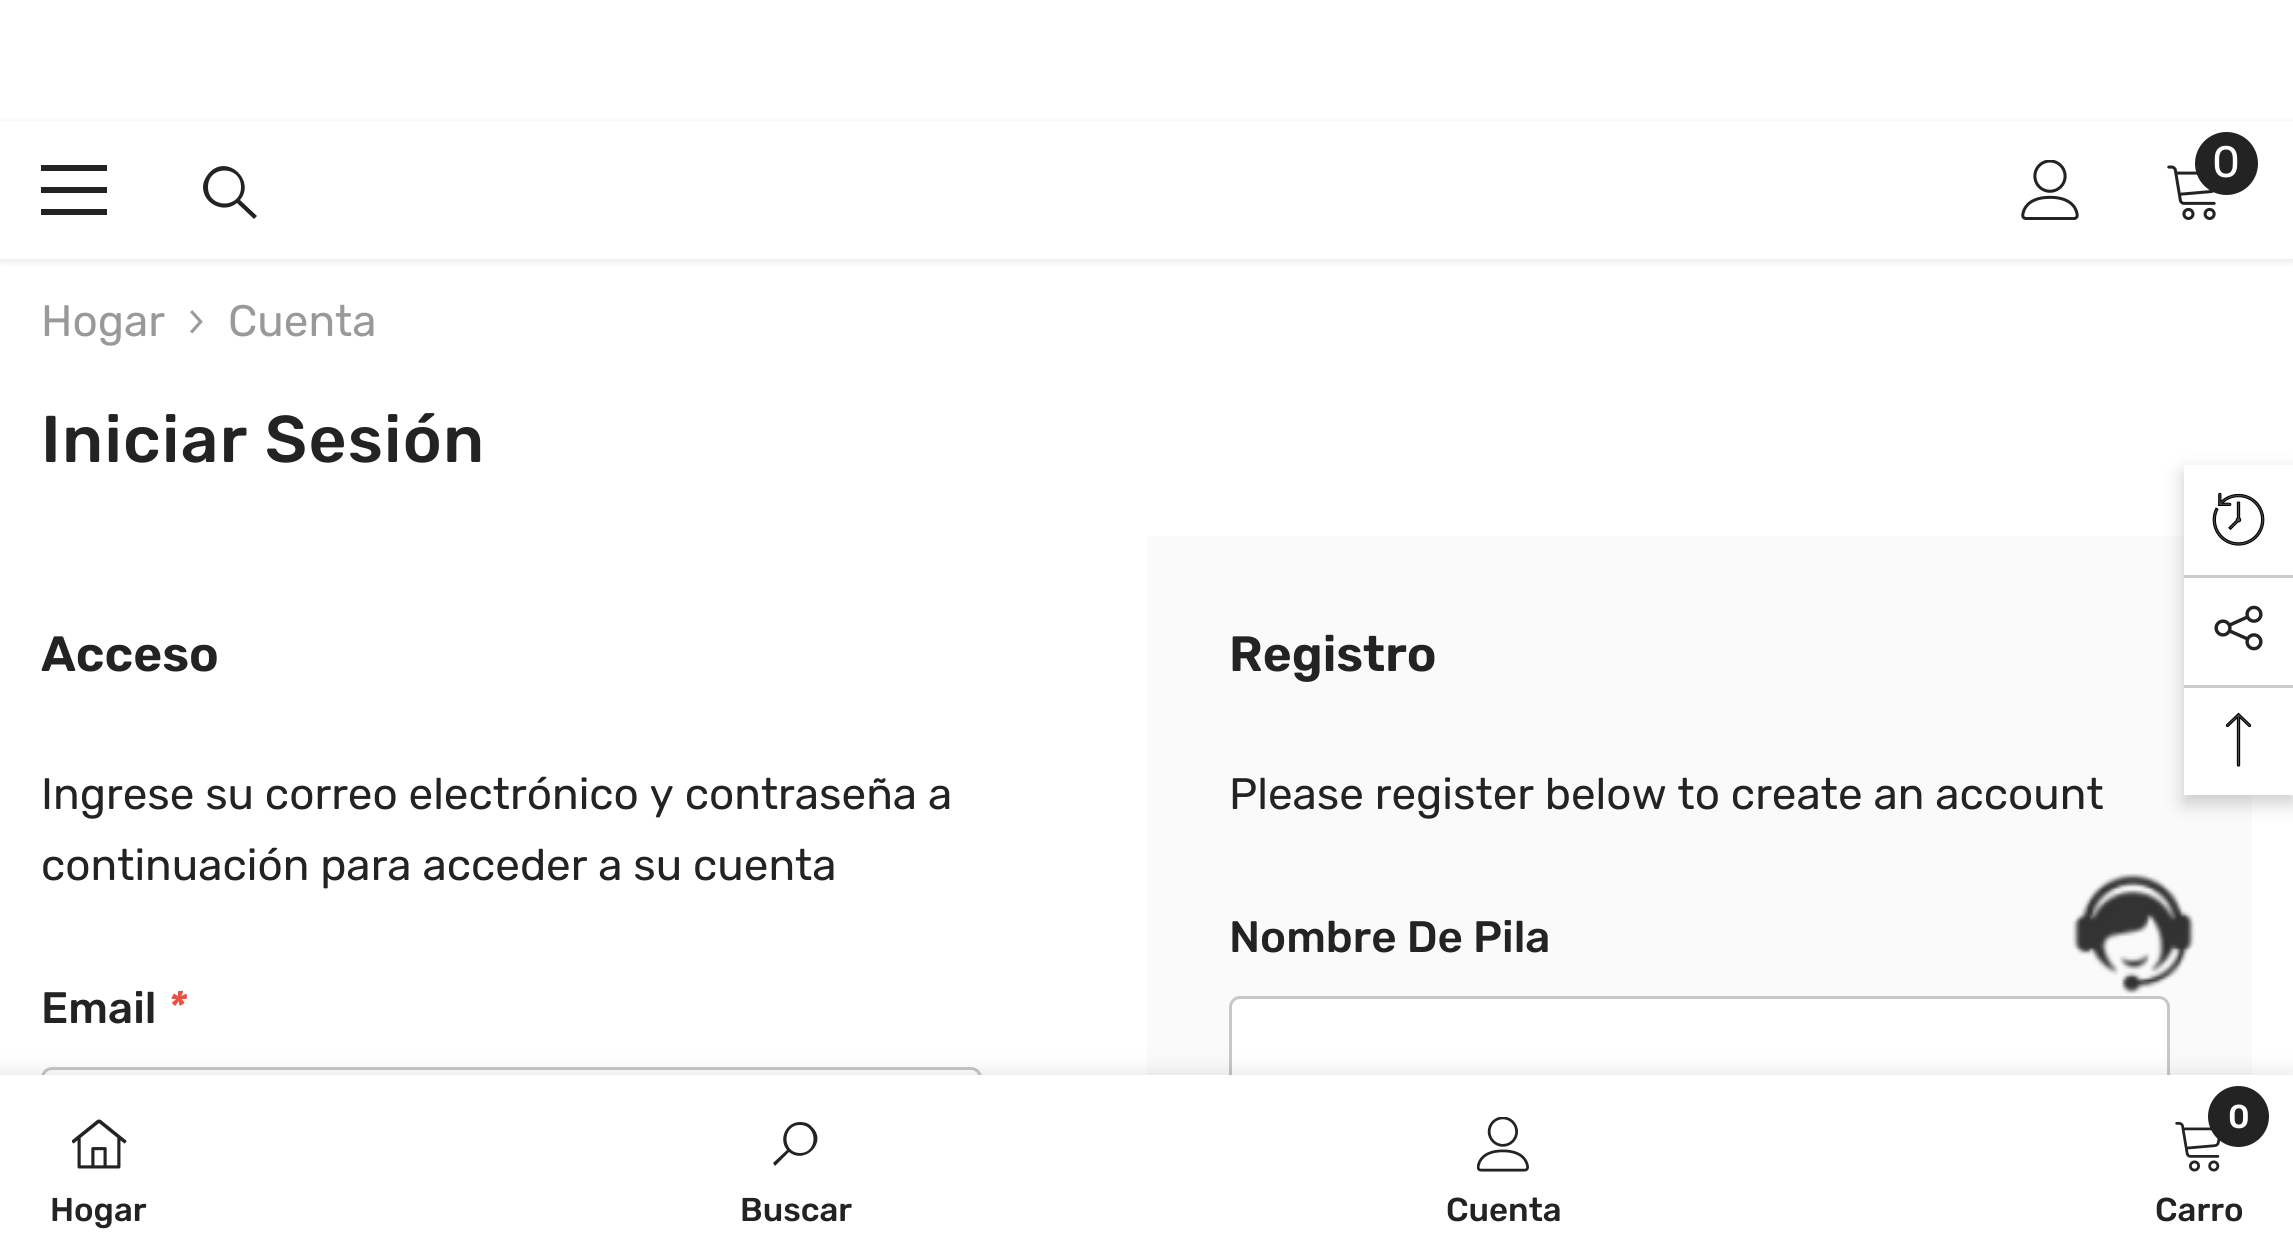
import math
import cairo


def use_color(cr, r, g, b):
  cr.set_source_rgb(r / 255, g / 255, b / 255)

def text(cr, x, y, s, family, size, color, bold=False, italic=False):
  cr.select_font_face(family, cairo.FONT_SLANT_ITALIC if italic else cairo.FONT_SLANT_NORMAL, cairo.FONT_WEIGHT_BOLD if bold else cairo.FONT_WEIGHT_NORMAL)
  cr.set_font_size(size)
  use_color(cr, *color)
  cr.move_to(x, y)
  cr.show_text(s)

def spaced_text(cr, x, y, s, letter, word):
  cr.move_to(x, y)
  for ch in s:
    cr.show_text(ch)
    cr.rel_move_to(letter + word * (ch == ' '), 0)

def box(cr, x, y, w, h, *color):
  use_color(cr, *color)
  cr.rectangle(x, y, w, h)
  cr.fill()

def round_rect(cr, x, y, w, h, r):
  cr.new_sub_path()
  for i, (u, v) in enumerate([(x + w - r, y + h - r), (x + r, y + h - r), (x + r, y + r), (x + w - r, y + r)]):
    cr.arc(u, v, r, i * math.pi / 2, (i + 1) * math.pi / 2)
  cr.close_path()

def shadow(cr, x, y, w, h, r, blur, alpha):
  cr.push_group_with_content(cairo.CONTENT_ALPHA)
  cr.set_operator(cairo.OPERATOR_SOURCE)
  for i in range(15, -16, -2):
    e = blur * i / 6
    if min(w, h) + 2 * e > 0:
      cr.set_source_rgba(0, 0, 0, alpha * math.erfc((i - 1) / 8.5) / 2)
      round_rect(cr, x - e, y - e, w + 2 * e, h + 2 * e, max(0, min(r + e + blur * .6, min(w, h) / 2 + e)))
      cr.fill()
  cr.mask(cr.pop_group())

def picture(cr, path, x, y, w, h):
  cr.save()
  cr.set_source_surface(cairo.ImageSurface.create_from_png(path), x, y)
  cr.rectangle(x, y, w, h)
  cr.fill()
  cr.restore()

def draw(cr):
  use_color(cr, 255, 255, 255)
  cr.paint()
  use_color(cr, 0, 0, 0)
  shadow(cr, 0, 124, 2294, 137, 0, 4, 0.1)
  box(cr, 0, 121, 2293, 138, 255, 255, 255)
  box(cr, 41, 187, 66, 6, 35, 35, 35)
  box(cr, 41, 165, 66, 6, 35, 35, 35)
  box(cr, 41, 209, 66, 6, 35, 35, 35)
  cr.new_path()
  cr.move_to(203, 187)
  cr.curve_to(203, 204, 224, 214, 237, 203)
  cr.line_to(254, 219)
  cr.line_to(257, 216)
  cr.line_to(240, 200)
  cr.curve_to(256, 181, 228, 154, 210, 172)
  cr.curve_to(206, 176, 203, 182, 203, 187)
  cr.close_path()
  cr.move_to(208, 187)
  cr.curve_to(208, 165, 241, 165, 241, 187)
  cr.curve_to(241, 209, 208, 209, 208, 187)
  cr.close_path()
  cr.fill()
  picture(cr, "img_01.png", 2021, 160, 58, 60)
  picture(cr, "img_02.png", 2167, 165, 49, 55)
  cr.arc(2226.5, 163.5, 31.5, 0, 2 * math.pi)
  cr.fill()
  picture(cr, "img_03.png", 190, 310, 13, 24)
  round_rect(cr, 42.5, 1068.5, 938, 132, 9.5)
  use_color(cr, 199, 199, 199)
  cr.set_line_width(3)
  cr.stroke()
  box(cr, 1147, 536, 1105, 539, 250, 250, 250)
  use_color(cr, 255, 255, 255)
  round_rect(cr, 1230.5, 997.5, 938, 131, 9.5)
  cr.fill_preserve()
  use_color(cr, 199, 199, 199)
  cr.stroke()
  use_color(cr, 0, 0, 0)
  shadow(cr, 0, 1075, 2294, 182, 0, 12.5, 0.12)
  box(cr, 0, 1075, 2293, 181, 255, 255, 255)
  picture(cr, "img_04.png", 72, 1119, 55, 50)
  use_color(cr, 35, 35, 35)
  cr.new_path()
  cr.move_to(800, 1122)
  cr.curve_to(786, 1122, 778, 1139, 787, 1150)
  cr.line_to(773, 1163)
  cr.line_to(775, 1166)
  cr.line_to(789, 1152)
  cr.curve_to(805, 1165, 828, 1142, 812, 1127)
  cr.curve_to(809, 1123, 804, 1122, 800, 1122)
  cr.close_path()
  cr.move_to(800, 1125)
  cr.curve_to(818, 1125, 818, 1153, 800, 1153)
  cr.curve_to(782, 1153, 782, 1125, 800, 1125)
  cr.close_path()
  cr.fill()
  picture(cr, "img_05.png", 1477, 1117, 52, 55)
  picture(cr, "img_06.png", 2175, 1122, 46, 50)
  cr.arc(2238.5, 1116.5, 30.5, 0, 2 * math.pi)
  cr.fill()
  use_color(cr, 0, 0, 0)
  shadow(cr, 2184, 473, 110, 330, 0, 9.5, 0.2)
  box(cr, 2184, 465, 109, 330, 255, 255, 255)
  picture(cr, "img_07.png", 2212, 492, 53, 54)
  box(cr, 2184, 575, 109, 3, 204, 204, 204)
  picture(cr, "img_08.png", 2214, 605, 49, 46)
  box(cr, 2184, 685, 109, 3, 204, 204, 204)
  picture(cr, "img_09.png", 2225, 712, 27, 55)
  picture(cr, "img_10.png", 2072, 873, 124, 121)
  text(cr, 2212, 177, "0", "Rubik", 44, (255, 255, 255))
  text(cr, 41, 336, "Hogar", "Rubik", 44, (153, 153, 153))
  text(cr, 228, 336, "Cuenta", "Rubik", 44, (153, 153, 153))
  cr.select_font_face("Rubik Medium")
  cr.set_font_size(66)
  use_color(cr, 35, 35, 35)
  spaced_text(cr, 41, 462, "Iniciar Sesión", 1.25, 0)
  text(cr, 41, 671, "Acceso", "Rubik SemiBold", 49.5, (35, 35, 35))
  text(cr, 41, 809, "Ingrese su correo electrónico y contraseña a", "Rubik", 44, (35, 35, 35))
  text(cr, 41, 880, "continuación para acceder a su cuenta", "Rubik", 44, (35, 35, 35))
  text(cr, 41, 1023, "Email", "Rubik Medium", 44, (35, 35, 35))
  text(cr, 167, 1023, "*", "Rubik Medium", 44, (233, 81, 68), italic=True)
  text(cr, 1229, 671, "Registro", "Rubik SemiBold", 49.5, (35, 35, 35))
  text(cr, 1229, 809, "Please register below to create an account", "Rubik", 44, (35, 35, 35))
  text(cr, 1229, 952, "Nombre De Pila", "Rubik Medium", 44, (35, 35, 35))
  text(cr, 50, 1221, "Hogar", "Rubik Medium", 33, (35, 35, 35))
  text(cr, 740, 1221, "Buscar", "Rubik Medium", 33, (35, 35, 35))
  text(cr, 1446, 1221, "Cuenta", "Rubik Medium", 33, (35, 35, 35))
  text(cr, 2228, 1128, "0", "Rubik Medium", 33, (255, 255, 255))
  text(cr, 2155, 1221, "Carro", "Rubik Medium", 33, (35, 35, 35))


surface = cairo.ImageSurface(cairo.FORMAT_RGB24, 2293, 1256)
cr = cairo.Context(surface)
options = cairo.FontOptions()
options.set_hint_metrics(cairo.HINT_METRICS_OFF)
options.set_hint_style(cairo.HINT_STYLE_NONE)
cr.set_font_options(options)
cr.set_miter_limit(4)
draw(cr)
surface.write_to_png("out.png")
